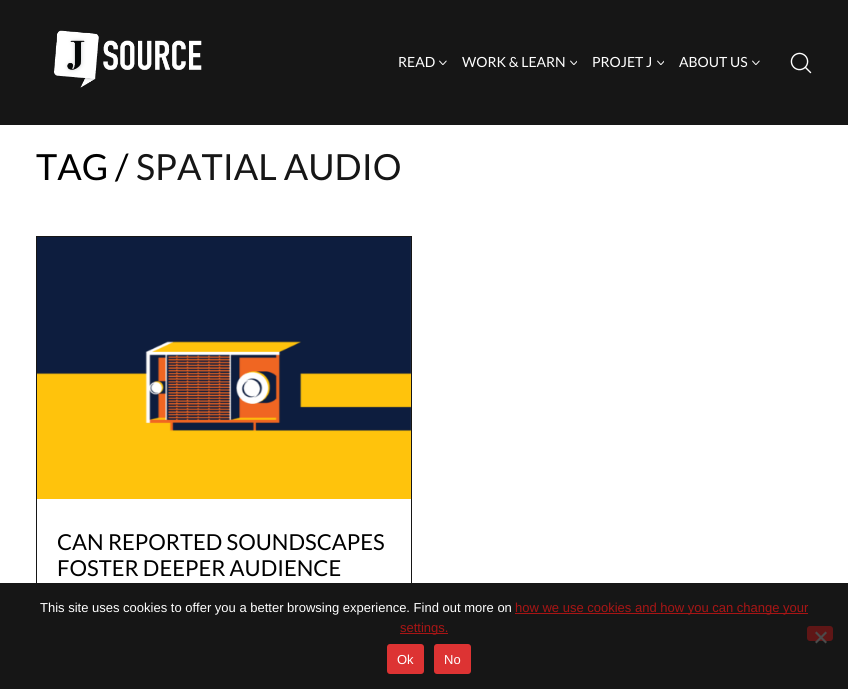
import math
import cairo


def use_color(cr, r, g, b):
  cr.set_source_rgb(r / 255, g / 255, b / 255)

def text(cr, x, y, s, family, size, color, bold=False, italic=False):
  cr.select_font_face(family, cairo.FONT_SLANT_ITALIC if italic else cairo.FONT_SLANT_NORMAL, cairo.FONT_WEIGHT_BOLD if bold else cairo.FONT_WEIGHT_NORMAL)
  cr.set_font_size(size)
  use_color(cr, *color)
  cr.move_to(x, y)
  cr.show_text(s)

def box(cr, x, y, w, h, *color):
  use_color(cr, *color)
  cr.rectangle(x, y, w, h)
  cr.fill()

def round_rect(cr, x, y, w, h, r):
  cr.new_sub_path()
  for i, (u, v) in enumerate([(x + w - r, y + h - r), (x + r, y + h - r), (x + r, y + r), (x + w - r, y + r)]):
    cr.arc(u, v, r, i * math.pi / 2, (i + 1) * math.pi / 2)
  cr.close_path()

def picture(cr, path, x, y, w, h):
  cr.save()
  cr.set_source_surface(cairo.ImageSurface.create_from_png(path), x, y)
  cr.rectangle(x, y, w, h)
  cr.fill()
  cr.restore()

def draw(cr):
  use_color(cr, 255, 255, 255)
  cr.paint()
  box(cr, 0, 0, 848, 125, 22, 22, 22)
  picture(cr, "img_01.png", 54, 30, 148, 58)
  picture(cr, "img_02.png", 439, 60, 8, 5)
  picture(cr, "img_03.png", 570, 60, 7, 5)
  picture(cr, "img_03.png", 657, 60, 7, 5)
  picture(cr, "img_02.png", 752, 60, 8, 5)
  picture(cr, "img_04.png", 790, 52, 22, 22)
  cr.rectangle(36.5, 236.5, 375, 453)
  cr.set_line_width(1)
  cr.stroke()
  picture(cr, "img_05.png", 37, 237, 374, 262)
  box(cr, 0, 583, 848, 106, 22, 22, 22)
  box(cr, 515, 613, 293, 1, 168, 21, 21)
  box(cr, 400, 633, 48, 1, 168, 21, 21)
  use_color(cr, 95, 22, 22)
  round_rect(cr, 807, 626, 26, 15, 3)
  cr.fill()
  use_color(cr, 75, 75, 75)
  cr.new_path()
  cr.move_to(825.5, 631.5)
  cr.line_to(827, 633)
  cr.line_to(816.5, 643.5)
  cr.line_to(815, 642)
  cr.close_path()
  cr.fill()
  cr.new_path()
  cr.move_to(815, 633)
  cr.line_to(816.5, 631.5)
  cr.line_to(827, 642)
  cr.line_to(825.5, 643.5)
  cr.close_path()
  cr.fill()
  use_color(cr, 221, 51, 51)
  round_rect(cr, 387, 644, 37, 30, 3)
  cr.fill()
  round_rect(cr, 434, 644, 37, 30, 3)
  cr.fill()
  text(cr, 398, 67, "READ", "Lato", 14, (255, 255, 255))
  text(cr, 462, 67, "WORK & LEARN", "Lato", 14, (255, 255, 255))
  text(cr, 592, 67, "PROJET J", "Lato", 14, (255, 255, 255))
  text(cr, 679, 67, "ABOUT US", "Lato", 14, (255, 255, 255))
  text(cr, 36, 180, "TAG /", "Lato", 36, (0, 0, 0))
  text(cr, 136, 180, "SPATIAL AUDIO", "Lato", 36, (22, 22, 22))
  text(cr, 57, 550, "CAN REPORTED SOUNDSCAPES", "Lato", 22, (0, 0, 0))
  text(cr, 57, 576, "FOSTER DEEPER AUDIENCE", "Lato", 22, (0, 0, 0))
  text(cr, 40, 612, "This site uses cookies to offer you a better browsing experience. Find out more on", "Liberation Sans", 13, (255, 255, 255))
  text(cr, 515, 612, "how we use cookies and how you can change your", "Liberation Sans", 13, (168, 21, 21))
  text(cr, 400, 632, "settings.", "Liberation Sans", 13, (168, 21, 21))
  text(cr, 397, 664, "Ok", "Liberation Sans", 13, (255, 255, 255))
  text(cr, 444, 664, "No", "Liberation Sans", 13, (255, 255, 255))


surface = cairo.ImageSurface(cairo.FORMAT_RGB24, 848, 689)
cr = cairo.Context(surface)
options = cairo.FontOptions()
options.set_hint_metrics(cairo.HINT_METRICS_OFF)
options.set_hint_style(cairo.HINT_STYLE_NONE)
cr.set_font_options(options)
cr.set_miter_limit(4)
draw(cr)
surface.write_to_png("out.png")
